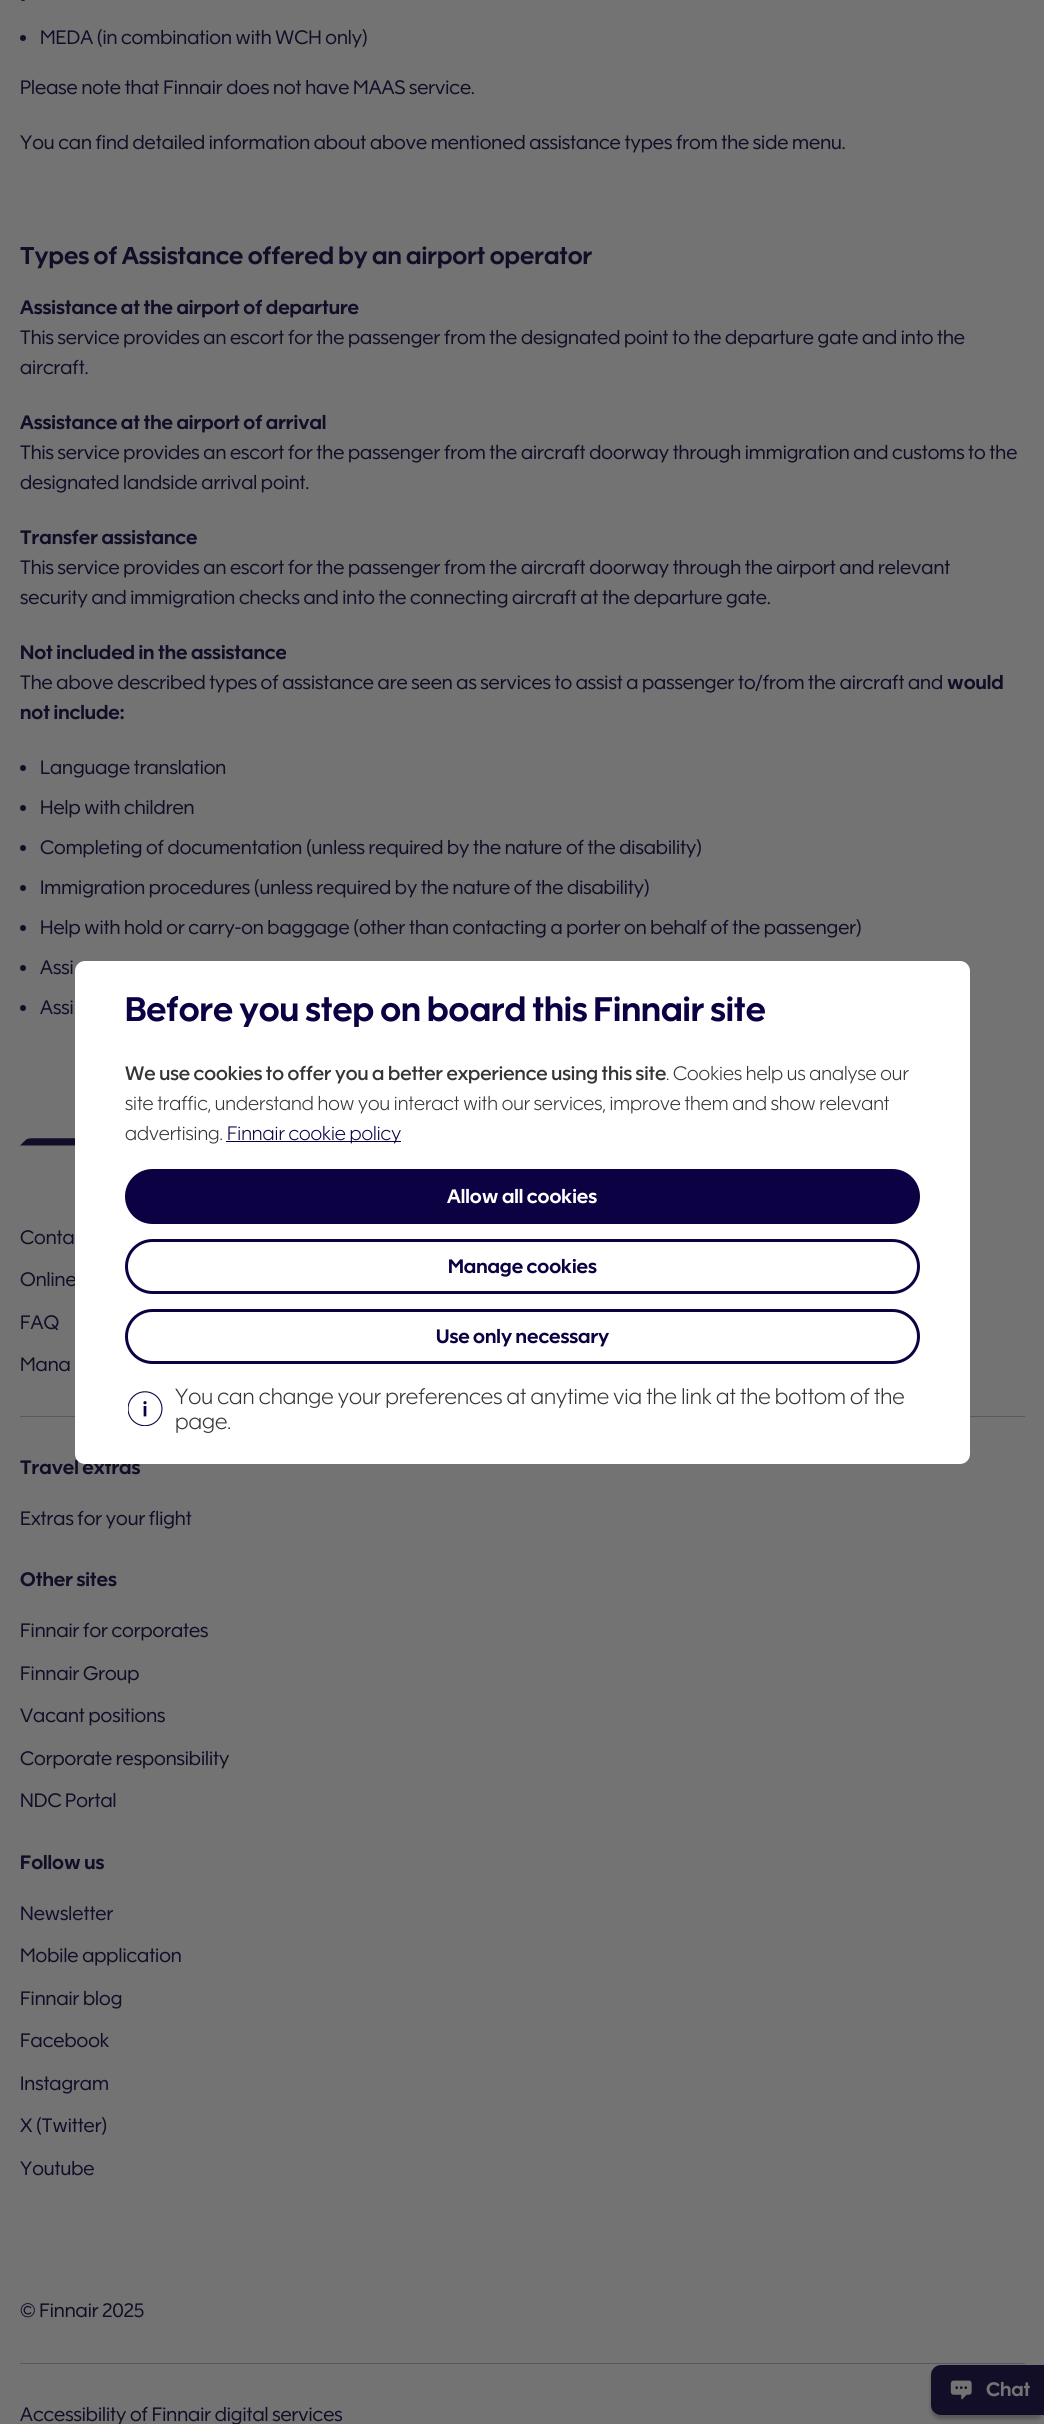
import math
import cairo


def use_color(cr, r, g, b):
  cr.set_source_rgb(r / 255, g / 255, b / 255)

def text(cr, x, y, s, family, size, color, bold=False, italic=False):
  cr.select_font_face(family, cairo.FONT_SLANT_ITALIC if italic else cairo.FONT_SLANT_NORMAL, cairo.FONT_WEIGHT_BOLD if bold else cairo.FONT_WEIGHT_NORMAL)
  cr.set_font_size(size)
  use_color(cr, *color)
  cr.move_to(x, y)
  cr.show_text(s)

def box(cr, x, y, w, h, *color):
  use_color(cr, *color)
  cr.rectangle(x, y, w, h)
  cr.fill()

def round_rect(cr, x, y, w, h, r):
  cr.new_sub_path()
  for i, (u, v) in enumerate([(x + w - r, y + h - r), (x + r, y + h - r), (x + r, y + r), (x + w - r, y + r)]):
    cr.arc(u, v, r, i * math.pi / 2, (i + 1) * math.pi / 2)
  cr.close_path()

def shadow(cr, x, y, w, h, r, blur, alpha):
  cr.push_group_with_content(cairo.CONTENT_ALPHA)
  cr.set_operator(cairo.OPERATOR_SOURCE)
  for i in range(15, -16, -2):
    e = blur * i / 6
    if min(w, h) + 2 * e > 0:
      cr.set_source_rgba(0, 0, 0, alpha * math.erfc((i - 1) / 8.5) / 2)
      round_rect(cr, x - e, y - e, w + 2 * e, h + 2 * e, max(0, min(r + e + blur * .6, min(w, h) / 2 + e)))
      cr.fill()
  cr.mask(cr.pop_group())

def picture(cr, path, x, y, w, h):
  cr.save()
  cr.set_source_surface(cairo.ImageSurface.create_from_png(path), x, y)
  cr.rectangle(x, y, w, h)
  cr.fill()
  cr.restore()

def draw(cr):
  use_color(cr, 115, 115, 115)
  cr.paint()
  use_color(cr, 18, 14, 40)
  round_rect(cr, 20, -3, 6, 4, 3)
  cr.fill()
  cr.arc(23, 38, 3, 0, 2 * math.pi)
  cr.fill()
  cr.arc(23, 768, 3, 0, 2 * math.pi)
  cr.fill()
  cr.arc(23, 808, 3, 0, 2 * math.pi)
  cr.fill()
  cr.arc(23, 848, 3, 0, 2 * math.pi)
  cr.fill()
  cr.arc(23, 888, 3, 0, 2 * math.pi)
  cr.fill()
  cr.arc(23, 928, 3, 0, 2 * math.pi)
  cr.fill()
  cr.arc(23, 968, 3, 0, 2 * math.pi)
  cr.fill()
  cr.arc(23, 1008, 3, 0, 2 * math.pi)
  cr.fill()
  picture(cr, "img_02.png", 20, 1138, 55, 8)
  box(cr, 20, 1416, 1005, 1, 88, 88, 98)
  box(cr, 20, 2363, 1005, 1, 88, 88, 98)
  use_color(cr, 20, 20, 20)
  shadow(cr, 931, 2369, 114, 50, 10, 2, 0.3)
  use_color(cr, 18, 14, 40)
  cr.new_path()
  cr.move_to(941, 2365)
  cr.line_to(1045, 2365)
  cr.line_to(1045, 2415)
  cr.line_to(941, 2415)
  cr.curve_to(935.5, 2415, 931, 2410.5, 931, 2405)
  cr.line_to(931, 2375)
  cr.curve_to(931, 2369.5, 935.5, 2365, 941, 2365)
  cr.close_path()
  cr.fill()
  picture(cr, "img_03.png", 950, 2380, 22, 20)
  text(cr, 40, 44, "MEDA (in combination with WCH only)", "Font", 20, (18, 14, 40))
  text(cr, 20, 94, "Please note that Finnair does not have MAAS service.", "Font", 20, (18, 14, 40))
  text(cr, 20, 149, "You can find detailed information about above mentioned assistance types from the side menu.", "Font", 20, (18, 14, 40))
  text(cr, 20, 264, "Types of Assistance offered by an airport operator", "Font", 25, (18, 14, 40), bold=True)
  text(cr, 20, 314, "Assistance at the airport of departure", "Font", 20, (18, 14, 40), bold=True)
  text(cr, 20, 344, "This service provides an escort for the passenger from the designated point to the departure gate and into the", "Font", 20, (18, 14, 40))
  text(cr, 20, 374, "aircraft.", "Font", 20, (18, 14, 40))
  text(cr, 20, 429, "Assistance at the airport of arrival", "Font", 20, (18, 14, 40), bold=True)
  text(cr, 20, 459, "This service provides an escort for the passenger from the aircraft doorway through immigration and customs to the", "Font", 20, (18, 14, 40))
  text(cr, 20, 489, "designated landside arrival point.", "Font", 20, (18, 14, 40))
  text(cr, 20, 544, "Transfer assistance", "Font", 20, (18, 14, 40), bold=True)
  text(cr, 20, 574, "This service provides an escort for the passenger from the aircraft doorway through the airport and relevant", "Font", 20, (18, 14, 40))
  text(cr, 20, 604, "security and immigration checks and into the connecting aircraft at the departure gate.", "Font", 20, (18, 14, 40))
  text(cr, 20, 659, "Not included in the assistance", "Font", 20, (18, 14, 40), bold=True)
  text(cr, 20, 689, "The above described types of assistance are seen as services to assist a passenger to/from the aircraft and", "Font", 20, (18, 14, 40))
  text(cr, 947, 689, "would", "Font", 20, (18, 14, 40), bold=True)
  text(cr, 20, 719, "not include:", "Font", 20, (18, 14, 40), bold=True)
  text(cr, 40, 774, "Language translation", "Font", 20, (18, 14, 40))
  text(cr, 40, 814, "Help with children", "Font", 20, (18, 14, 40))
  text(cr, 40, 854, "Completing of documentation (unless required by the nature of the disability)", "Font", 20, (18, 14, 40))
  text(cr, 40, 894, "Immigration procedures (unless required by the nature of the disability)", "Font", 20, (18, 14, 40))
  text(cr, 40, 934, "Help with hold or carry-on baggage (other than contacting a porter on behalf of the passenger)", "Font", 20, (18, 14, 40))
  text(cr, 40, 974, "Assi", "Font", 20, (18, 14, 40))
  text(cr, 40, 1014, "Assi", "Font", 20, (18, 14, 40))
  text(cr, 20, 1244, "Conta", "Font", 20, (18, 14, 40))
  text(cr, 20, 1286, "Online", "Font", 20, (18, 14, 40))
  text(cr, 20, 1329, "FAQ", "Font", 20, (18, 14, 40))
  text(cr, 20, 1371, "Mana", "Font", 20, (18, 14, 40))
  text(cr, 20, 1474, "Travel extras", "Font", 20, (18, 14, 40), bold=True)
  use_color(cr, 255, 255, 255)
  round_rect(cr, 75, 961, 895, 503, 10)
  cr.fill()
  picture(cr, "img_01.png", 128, 1391, 35, 35)
  text(cr, 175, 1429, "page.", "Font Light", 22.5, (53, 53, 53))
  text(cr, 175, 1404, "You can change your preferences at anytime via the link at the bottom of the", "Font Light", 22.5, (53, 53, 53))
  round_rect(cr, 126.5, 1310.5, 792, 52, 26)
  use_color(cr, 12, 2, 67)
  cr.set_line_width(3)
  cr.stroke()
  text(cr, 436, 1343, "Use only necessary", "Font", 20, (12, 2, 67), bold=True)
  round_rect(cr, 126.5, 1240.5, 792, 52, 26)
  cr.stroke()
  text(cr, 448, 1273, "Manage cookies", "Font", 20, (12, 2, 67), bold=True)
  round_rect(cr, 126.5, 1170.5, 792, 52, 26)
  cr.fill_preserve()
  cr.stroke()
  text(cr, 447, 1203, "Allow all cookies", "Font", 20, (255, 255, 255), bold=True)
  box(cr, 226, 1141, 175, 1, 12, 2, 67)
  text(cr, 227, 1140, "Finnair cookie policy", "Font Light", 20, (12, 2, 67))
  text(cr, 125, 1140, "advertising.", "Font Light", 20, (53, 53, 53))
  text(cr, 125, 1110, "site traffic, understand how you interact with our services, improve them and show relevant", "Font Light", 20, (53, 53, 53))
  text(cr, 666, 1080, ". Cookies help us analyse our", "Font Light", 20, (53, 53, 53))
  text(cr, 125, 1080, "We use cookies to offer you a better experience using this site", "Font Medium", 20, (53, 53, 53))
  text(cr, 125, 1021, "Before you step on board this Finnair site", "Font", 35, (12, 2, 67), bold=True)
  text(cr, 20, 1525, "Extras for your flight", "Font", 20, (18, 14, 40))
  text(cr, 20, 1586, "Other sites", "Font", 20, (18, 14, 40), bold=True)
  text(cr, 20, 1637, "Finnair for corporates", "Font", 20, (18, 14, 40))
  text(cr, 20, 1680, "Finnair Group", "Font", 20, (18, 14, 40))
  text(cr, 20, 1722, "Vacant positions", "Font", 20, (18, 14, 40))
  text(cr, 20, 1765, "Corporate responsibility", "Font", 20, (18, 14, 40))
  text(cr, 20, 1807, "NDC Portal", "Font", 20, (18, 14, 40))
  text(cr, 20, 1869, "Follow us", "Font", 20, (18, 14, 40), bold=True)
  text(cr, 20, 1920, "Newsletter", "Font", 20, (18, 14, 40))
  text(cr, 20, 1962, "Mobile application", "Font", 20, (18, 14, 40))
  text(cr, 20, 2005, "Finnair blog", "Font", 20, (18, 14, 40))
  text(cr, 20, 2047, "Facebook", "Font", 20, (18, 14, 40))
  text(cr, 20, 2090, "Instagram", "Font", 20, (18, 14, 40))
  text(cr, 20, 2132, "X (Twitter)", "Font", 20, (18, 14, 40))
  text(cr, 20, 2175, "Youtube", "Font", 20, (18, 14, 40))
  text(cr, 20, 2317, "© Finnair 2025", "Font", 20, (18, 14, 40))
  text(cr, 20, 2421, "Accessibility of Finnair digital services", "Font", 20, (18, 14, 40))
  text(cr, 986, 2396, "Chat", "Font", 20, (115, 115, 115), bold=True)


surface = cairo.ImageSurface(cairo.FORMAT_RGB24, 1044, 2424)
cr = cairo.Context(surface)
options = cairo.FontOptions()
options.set_hint_metrics(cairo.HINT_METRICS_OFF)
options.set_hint_style(cairo.HINT_STYLE_NONE)
cr.set_font_options(options)
cr.set_miter_limit(4)
draw(cr)
surface.write_to_png("out.png")
